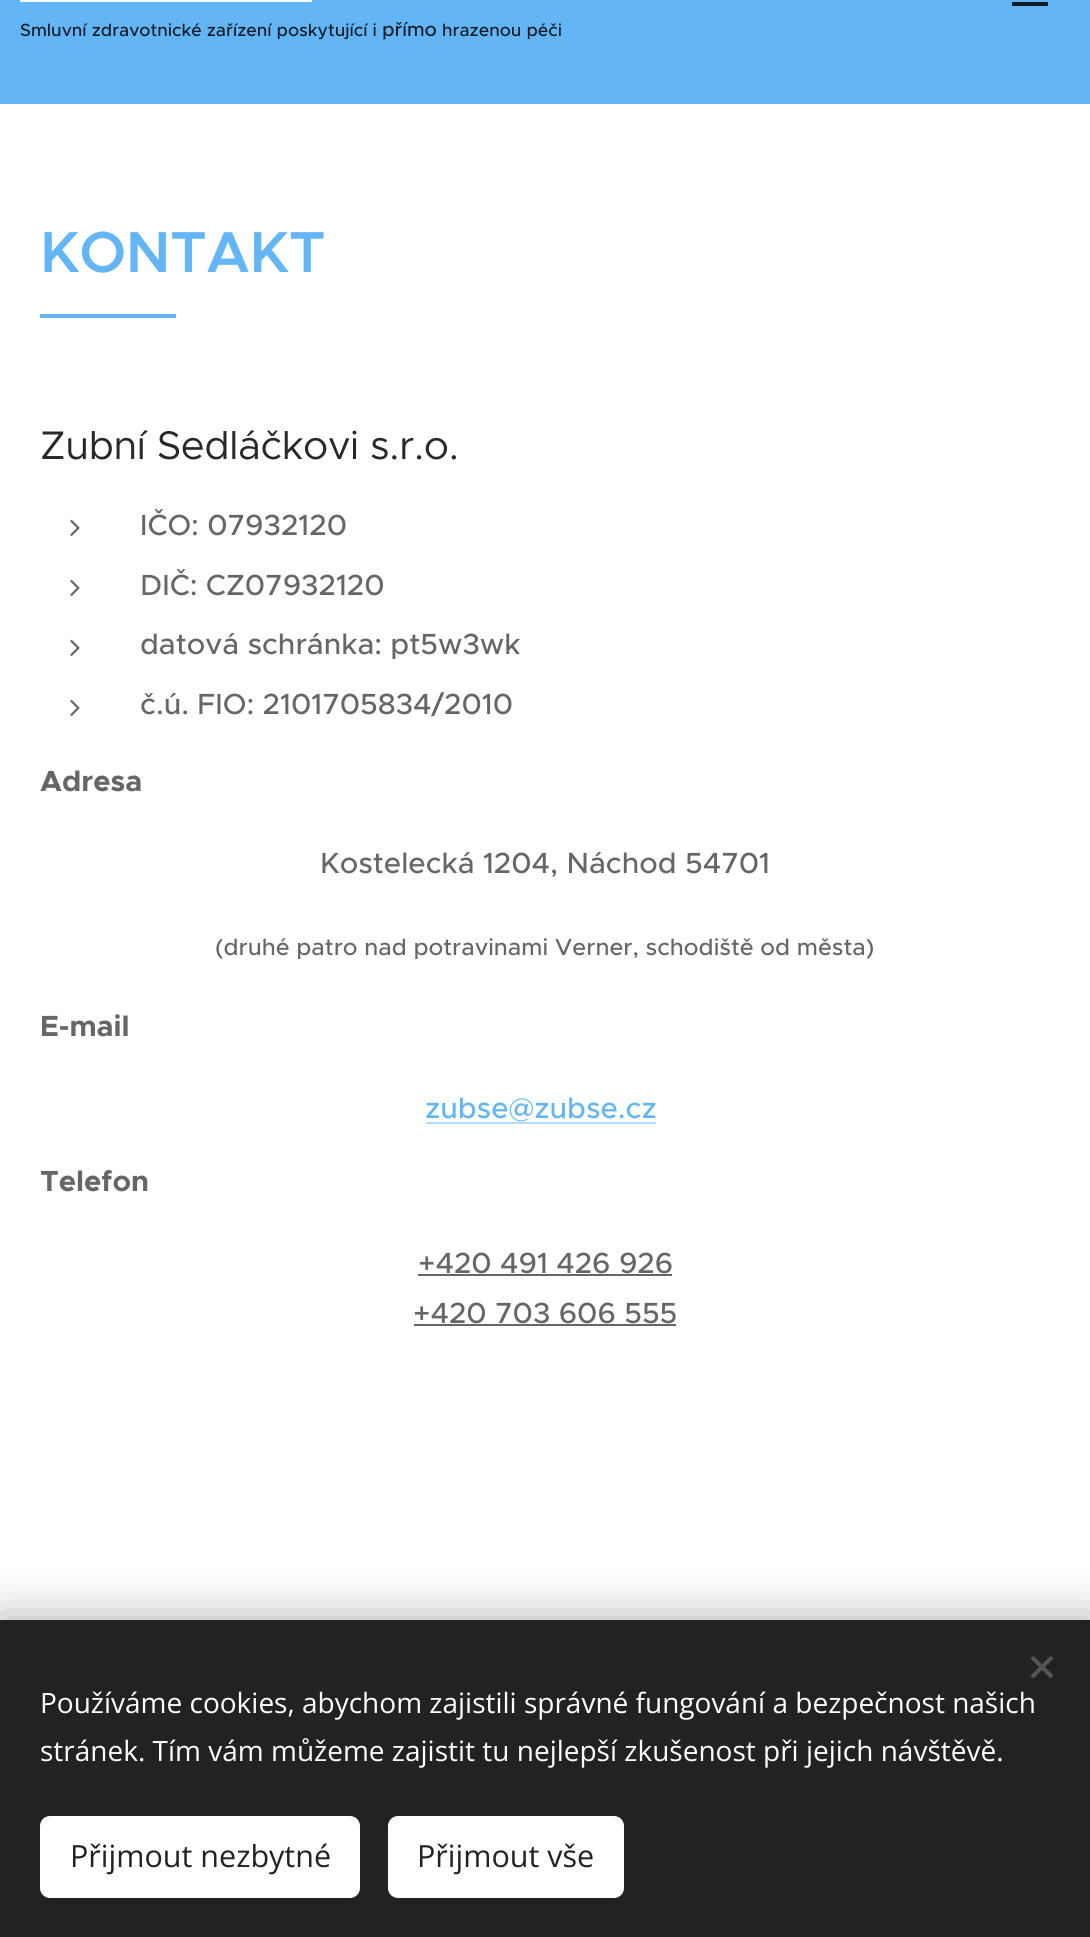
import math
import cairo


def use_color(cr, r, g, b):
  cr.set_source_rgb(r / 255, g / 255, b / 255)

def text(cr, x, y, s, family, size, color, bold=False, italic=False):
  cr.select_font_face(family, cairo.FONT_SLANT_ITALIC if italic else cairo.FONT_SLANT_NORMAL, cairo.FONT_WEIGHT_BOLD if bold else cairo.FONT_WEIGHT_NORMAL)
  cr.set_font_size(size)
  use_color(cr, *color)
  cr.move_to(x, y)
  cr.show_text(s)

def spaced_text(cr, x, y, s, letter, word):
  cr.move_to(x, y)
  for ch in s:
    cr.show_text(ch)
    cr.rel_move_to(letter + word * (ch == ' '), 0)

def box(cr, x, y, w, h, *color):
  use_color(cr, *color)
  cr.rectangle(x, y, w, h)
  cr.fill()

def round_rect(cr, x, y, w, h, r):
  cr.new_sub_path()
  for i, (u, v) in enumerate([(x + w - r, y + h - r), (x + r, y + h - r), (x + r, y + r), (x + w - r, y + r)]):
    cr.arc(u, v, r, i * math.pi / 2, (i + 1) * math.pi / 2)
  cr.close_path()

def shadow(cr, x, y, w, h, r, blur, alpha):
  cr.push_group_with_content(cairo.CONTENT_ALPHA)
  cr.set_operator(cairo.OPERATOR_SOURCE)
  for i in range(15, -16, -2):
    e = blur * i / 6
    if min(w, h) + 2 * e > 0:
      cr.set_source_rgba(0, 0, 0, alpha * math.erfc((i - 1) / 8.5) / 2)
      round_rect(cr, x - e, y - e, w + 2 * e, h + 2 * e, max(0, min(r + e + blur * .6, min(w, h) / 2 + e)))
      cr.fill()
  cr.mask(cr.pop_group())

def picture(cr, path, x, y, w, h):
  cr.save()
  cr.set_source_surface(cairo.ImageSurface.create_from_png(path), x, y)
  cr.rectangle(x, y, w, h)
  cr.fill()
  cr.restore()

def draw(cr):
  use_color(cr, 255, 255, 255)
  cr.paint()
  box(cr, 0, 0, 1090, 104, 100, 181, 246)
  box(cr, 1012, 2, 36, 4, 15, 27, 37)
  box(cr, 20, 0, 292, 2, 255, 255, 255)
  box(cr, 40, 314, 136, 4, 100, 181, 246)
  picture(cr, "img_01.png", 70, 519, 10, 17)
  picture(cr, "img_01.png", 70, 579, 10, 17)
  picture(cr, "img_01.png", 70, 639, 10, 17)
  picture(cr, "img_01.png", 70, 699, 10, 17)
  box(cr, 426, 1122, 230, 2, 178, 218, 251)
  box(cr, 418, 1274, 254, 2, 102, 102, 102)
  box(cr, 414, 1324, 262, 2, 102, 102, 102)
  use_color(cr, 0, 0, 0)
  shadow(cr, 0, 1620, 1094, 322, 0, 25, 0.33)
  box(cr, 0, 1620, 1090, 317, 34, 34, 34)
  use_color(cr, 85, 85, 85)
  cr.new_path()
  cr.move_to(1030.5, 1675.5)
  cr.line_to(1050.5, 1656)
  cr.line_to(1053.5, 1658.5)
  cr.line_to(1033.5, 1678.5)
  cr.close_path()
  cr.fill()
  cr.new_path()
  cr.move_to(1033.5, 1656)
  cr.line_to(1053.5, 1675.5)
  cr.line_to(1050.5, 1678.5)
  cr.line_to(1030.5, 1658.5)
  cr.close_path()
  cr.fill()
  use_color(cr, 255, 255, 255)
  round_rect(cr, 40, 1816, 320, 82, 10)
  cr.fill()
  round_rect(cr, 388, 1816, 236, 82, 10)
  cr.fill()
  text(cr, 20, 36, "Smluvní zdravotnické zařízení poskytující i", "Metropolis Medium", 17.6, (15, 27, 37))
  text(cr, 382, 36, "přímo", "Metropolis Medium", 19.5, (15, 27, 37))
  text(cr, 442, 36, "hrazenou péči", "Metropolis Medium", 17.6, (15, 27, 37))
  cr.select_font_face("Metropolis SemiBold")
  cr.set_font_size(58)
  use_color(cr, 100, 181, 246)
  spaced_text(cr, 40, 272, "KONTAKT", -0.5, 0)
  cr.select_font_face("Metropolis")
  cr.set_font_size(40)
  use_color(cr, 40, 40, 40)
  spaced_text(cr, 40, 459, "Zubní Sedláčkovi s.r.o.", -0.4, 0)
  text(cr, 140, 535, "IČO: 07932120", "Metropolis Medium", 29.25, (102, 102, 102))
  text(cr, 140, 595, "DIČ: CZ07932120", "Metropolis Medium", 29.25, (102, 102, 102))
  text(cr, 140, 654, "datová schránka: pt5w3wk", "Metropolis Medium", 29.25, (102, 102, 102))
  text(cr, 140, 714, "č.ú. FIO: 2101705834/2010", "Metropolis Medium", 29.25, (102, 102, 102))
  text(cr, 40, 791, "Adresa", "Metropolis", 29.25, (102, 102, 102), bold=True)
  text(cr, 320, 873, "Kostelecká 1204, Náchod 54701", "Metropolis Medium", 29.25, (102, 102, 102))
  text(cr, 215, 955, "(druhé patro nad potravinami Verner, schodiště od města)", "Metropolis Medium", 23.35, (102, 102, 102))
  text(cr, 40, 1036, "E-mail", "Metropolis", 29.25, (102, 102, 102), bold=True)
  text(cr, 425, 1118, "zubse@zubse.cz", "Metropolis Medium", 29.25, (100, 181, 246))
  text(cr, 40, 1191, "Telefon", "Metropolis", 29.25, (102, 102, 102), bold=True)
  text(cr, 418, 1273, "+420 491 426 926", "Metropolis Medium", 29.25, (102, 102, 102))
  text(cr, 413, 1323, "+420 703 606 555", "Metropolis Medium", 29.25, (102, 102, 102))
  text(cr, 40, 1713, "Používáme cookies, abychom zajistili správné fungování a bezpečnost našich", "Open Sans", 28, (255, 255, 255))
  text(cr, 40, 1761, "stránek. Tím vám můžeme zajistit tu nejlepší zkušenost při jejich návštěvě.", "Open Sans", 28, (255, 255, 255))
  text(cr, 70, 1867, "Přijmout nezbytné", "Open Sans", 30.5, (34, 34, 34))
  text(cr, 417, 1867, "Přijmout vše", "Open Sans", 30.5, (34, 34, 34))


surface = cairo.ImageSurface(cairo.FORMAT_RGB24, 1090, 1937)
cr = cairo.Context(surface)
options = cairo.FontOptions()
options.set_hint_metrics(cairo.HINT_METRICS_OFF)
options.set_hint_style(cairo.HINT_STYLE_NONE)
cr.set_font_options(options)
cr.set_miter_limit(4)
draw(cr)
surface.write_to_png("out.png")
